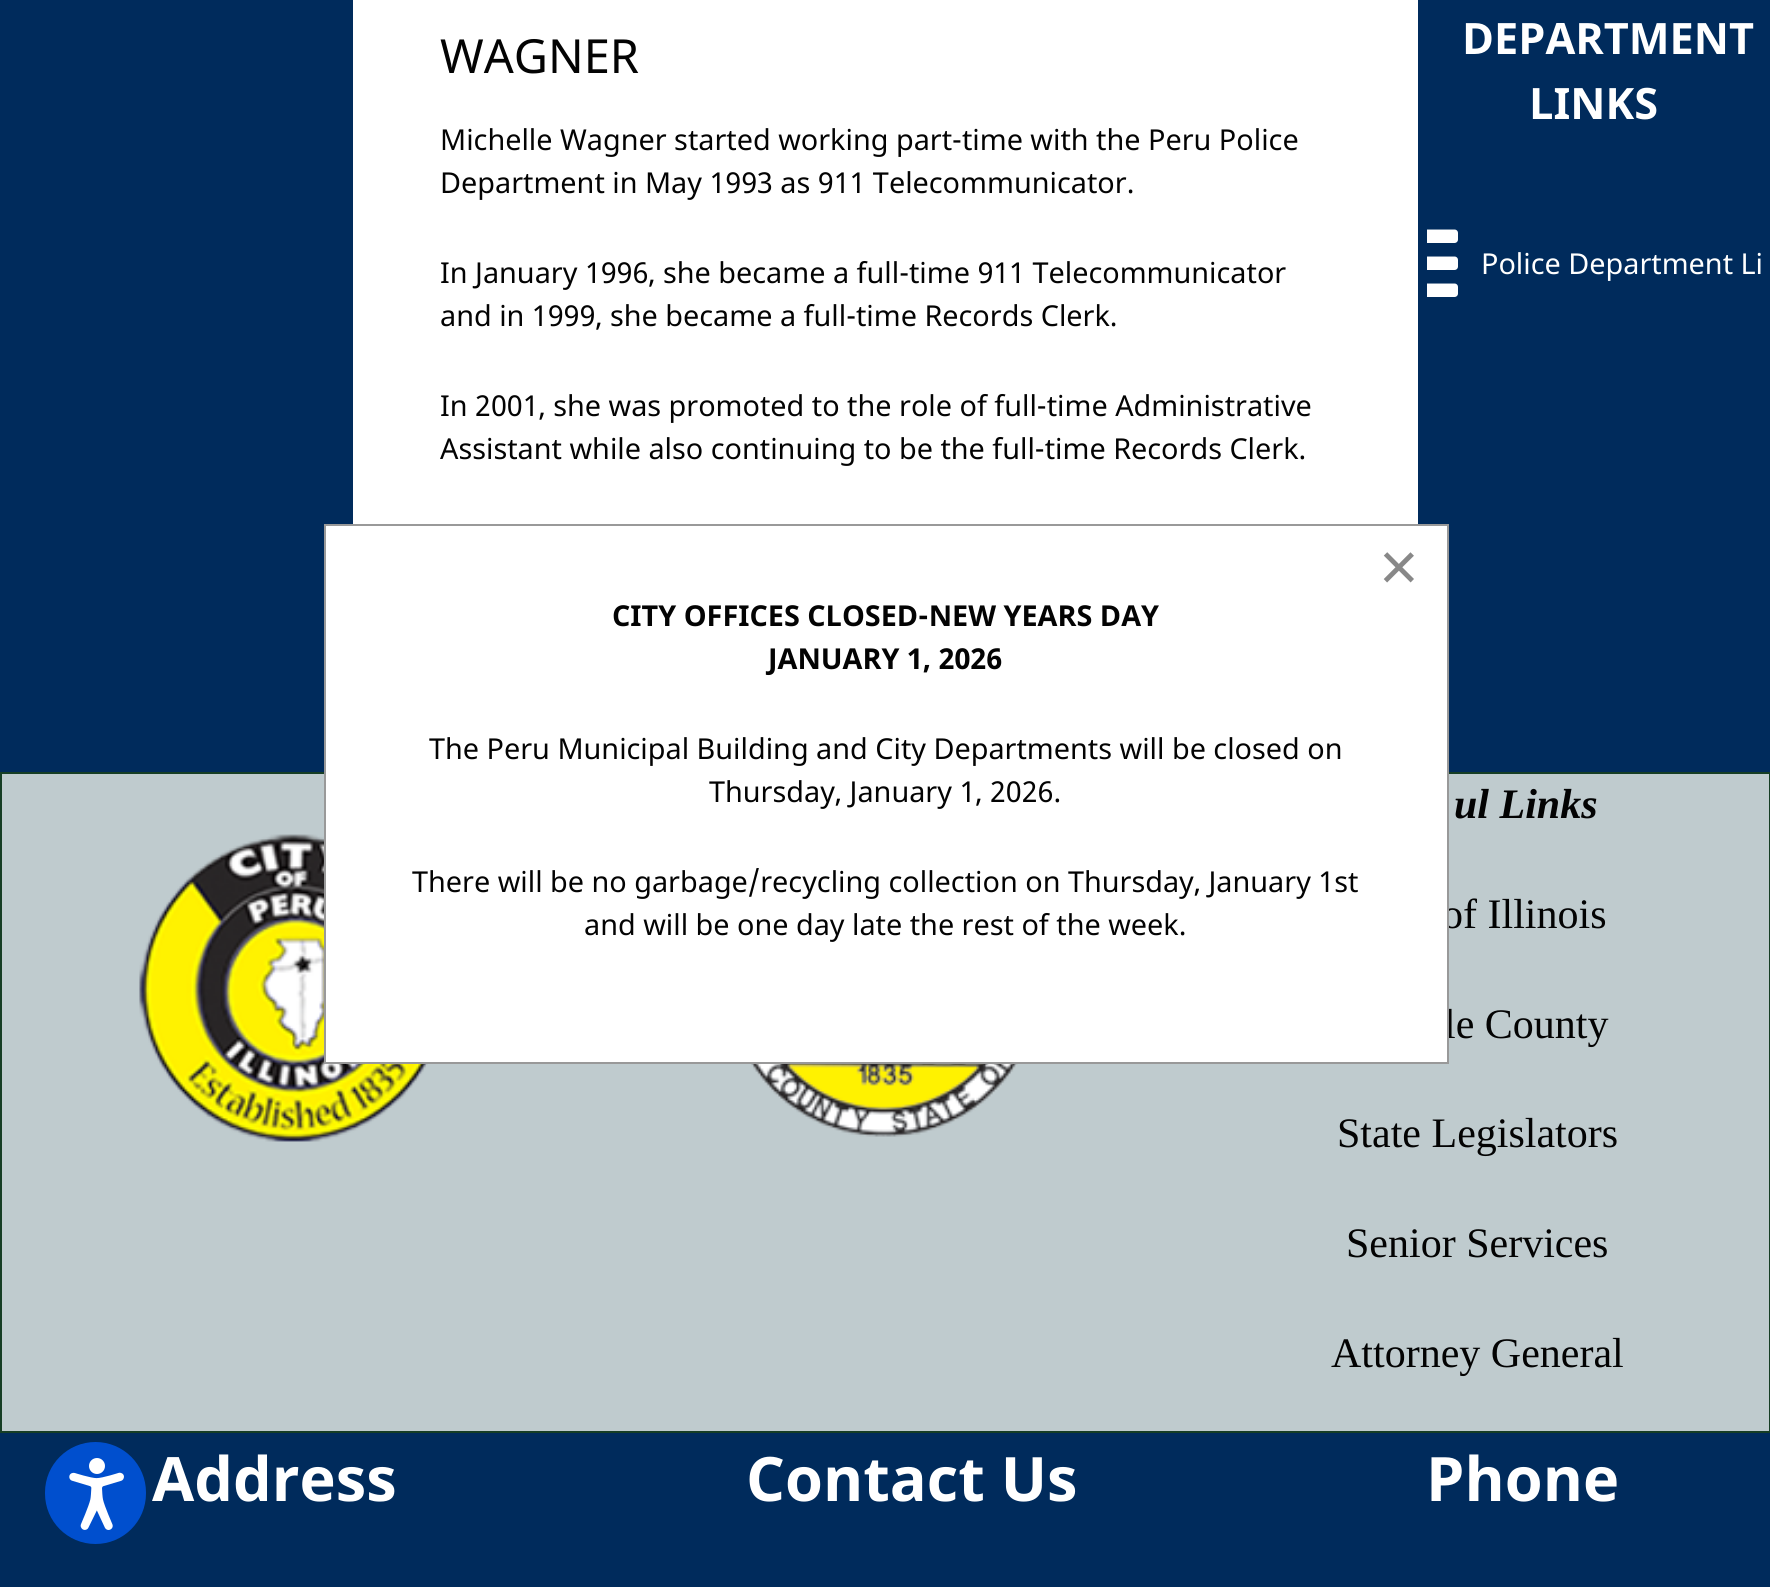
import math
import cairo


def use_color(cr, r, g, b):
  cr.set_source_rgb(r / 255, g / 255, b / 255)

def text(cr, x, y, s, family, size, color, bold=False, italic=False):
  cr.select_font_face(family, cairo.FONT_SLANT_ITALIC if italic else cairo.FONT_SLANT_NORMAL, cairo.FONT_WEIGHT_BOLD if bold else cairo.FONT_WEIGHT_NORMAL)
  cr.set_font_size(size)
  use_color(cr, *color)
  cr.move_to(x, y)
  cr.show_text(s)

def box(cr, x, y, w, h, *color):
  use_color(cr, *color)
  cr.rectangle(x, y, w, h)
  cr.fill()

def round_rect(cr, x, y, w, h, r):
  cr.new_sub_path()
  for i, (u, v) in enumerate([(x + w - r, y + h - r), (x + r, y + h - r), (x + r, y + r), (x + w - r, y + r)]):
    cr.arc(u, v, r, i * math.pi / 2, (i + 1) * math.pi / 2)
  cr.close_path()

def picture(cr, path, x, y, w, h):
  cr.save()
  cr.set_source_surface(cairo.ImageSurface.create_from_png(path), x, y)
  cr.rectangle(x, y, w, h)
  cr.fill()
  cr.restore()

def draw(cr):
  use_color(cr, 255, 255, 255)
  cr.paint()
  box(cr, 0, 1433, 1770, 154, 0, 43, 92)
  use_color(cr, 0, 79, 206)
  round_rect(cr, 45, 1442, 101, 102, 50.5)
  cr.fill()
  picture(cr, "img_01.png", 69, 1458, 55, 72)
  box(cr, 0, 0, 353, 772, 0, 43, 92)
  box(cr, 1418, 0, 352, 772, 0, 43, 92)
  picture(cr, "img_02.png", 1427, 229, 31, 68)
  use_color(cr, 191, 203, 206)
  cr.rectangle(1, 773, 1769, 659)
  cr.fill_preserve()
  use_color(cr, 22, 62, 37)
  cr.stroke()
  picture(cr, "img_03.png", 139, 834, 289, 308)
  picture(cr, "img_04.png", 751, 1064, 267, 73)
  text(cr, 440, 73, "WAGNER", "Noto Sans", 47, (3, 3, 3))
  text(cr, 440, 150, "Michelle Wagner started working part-time with the Peru Police", "Noto Sans", 28.8, (3, 3, 3))
  text(cr, 440, 193, "Department in May 1993 as 911 Telecommunicator.", "Noto Sans", 28.8, (3, 3, 3))
  text(cr, 440, 283, "In January 1996, she became a full-time 911 Telecommunicator", "Noto Sans", 28.8, (3, 3, 3))
  text(cr, 440, 326, "and in 1999, she became a full-time Records Clerk.", "Noto Sans", 28.8, (3, 3, 3))
  text(cr, 440, 416, "In 2001, she was promoted to the role of full-time Administrative", "Noto Sans", 28.8, (3, 3, 3))
  text(cr, 440, 459, "Assistant while also continuing to be the full-time Records Clerk.", "Noto Sans", 28.8, (3, 3, 3))
  text(cr, 1462, 54, "DEPARTMENT", "Noto Sans", 43.25, (255, 255, 255), bold=True)
  text(cr, 1529, 119, "LINKS", "Noto Sans", 43.25, (255, 255, 255), bold=True)
  text(cr, 1481, 274, "Police Department Li", "Noto Sans", 28.8, (255, 255, 255))
  text(cr, 1454, 818, "ul Links", "Liberation Serif", 42, (3, 3, 3), bold=True, italic=True)
  text(cr, 1442, 928, "of Illinois", "Liberation Serif", 42, (3, 3, 3))
  text(cr, 1444, 1038, "le County", "Liberation Serif", 42, (3, 3, 3))
  text(cr, 1337, 1147, "State Legislators", "Liberation Serif", 42, (3, 3, 3))
  text(cr, 1346, 1257, "Senior Services", "Liberation Serif", 42, (3, 3, 3))
  text(cr, 1331, 1367, "Attorney General", "Liberation Serif", 42, (3, 3, 3))
  text(cr, 152, 1501, "Address", "Noto Sans", 61.25, (255, 255, 255), bold=True)
  text(cr, 746, 1501, "Contact Us", "Noto Sans", 61.25, (255, 255, 255), bold=True)
  text(cr, 1426, 1501, "Phone", "Noto Sans", 61.25, (255, 255, 255), bold=True)
  cr.rectangle(325, 525, 1123, 538)
  cr.fill_preserve()
  use_color(cr, 153, 153, 153)
  cr.stroke()
  text(cr, 1379, 590, "×", "Liberation Sans", 68, (136, 136, 136))
  text(cr, 612, 626, "CITY OFFICES CLOSED-NEW YEARS DAY", "Noto Sans", 28.8, (3, 3, 3), bold=True)
  text(cr, 768, 669, "JANUARY 1, 2026", "Noto Sans", 28.8, (3, 3, 3), bold=True)
  text(cr, 429, 759, "The Peru Municipal Building and City Departments will be closed on", "Noto Sans", 28.8, (3, 3, 3))
  text(cr, 709, 802, "Thursday, January 1, 2026.", "Noto Sans", 28.8, (3, 3, 3))
  text(cr, 412, 892, "There will be no garbage/recycling collection on Thursday, January 1st", "Noto Sans", 28.8, (3, 3, 3))
  text(cr, 584, 935, "and will be one day late the rest of the week.", "Noto Sans", 28.8, (3, 3, 3))


surface = cairo.ImageSurface(cairo.FORMAT_RGB24, 1770, 1587)
cr = cairo.Context(surface)
options = cairo.FontOptions()
options.set_hint_metrics(cairo.HINT_METRICS_OFF)
options.set_hint_style(cairo.HINT_STYLE_NONE)
cr.set_font_options(options)
cr.set_miter_limit(4)
draw(cr)
surface.write_to_png("out.png")
